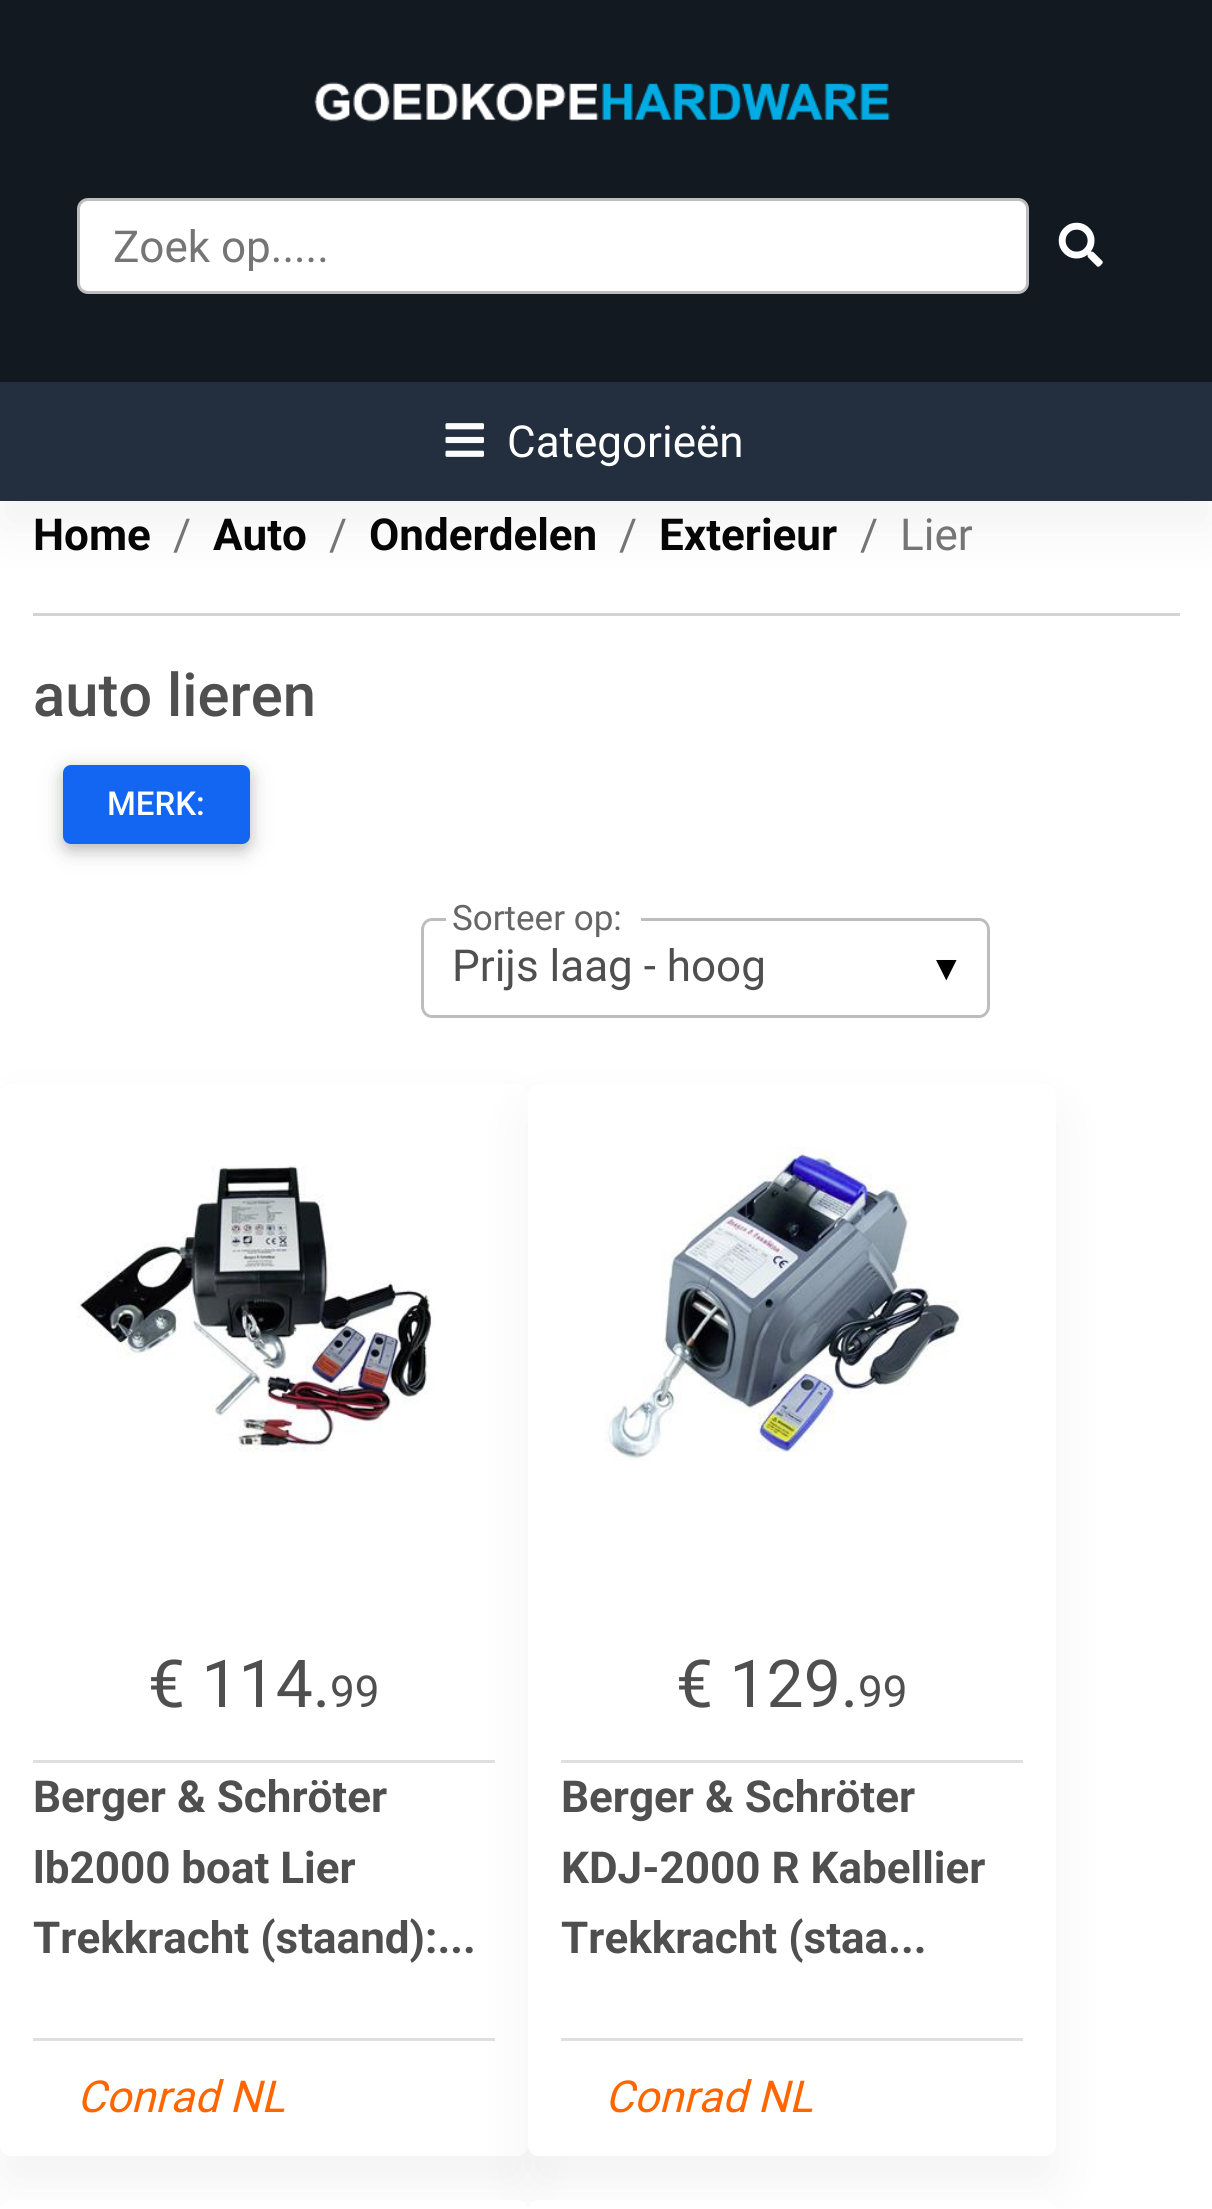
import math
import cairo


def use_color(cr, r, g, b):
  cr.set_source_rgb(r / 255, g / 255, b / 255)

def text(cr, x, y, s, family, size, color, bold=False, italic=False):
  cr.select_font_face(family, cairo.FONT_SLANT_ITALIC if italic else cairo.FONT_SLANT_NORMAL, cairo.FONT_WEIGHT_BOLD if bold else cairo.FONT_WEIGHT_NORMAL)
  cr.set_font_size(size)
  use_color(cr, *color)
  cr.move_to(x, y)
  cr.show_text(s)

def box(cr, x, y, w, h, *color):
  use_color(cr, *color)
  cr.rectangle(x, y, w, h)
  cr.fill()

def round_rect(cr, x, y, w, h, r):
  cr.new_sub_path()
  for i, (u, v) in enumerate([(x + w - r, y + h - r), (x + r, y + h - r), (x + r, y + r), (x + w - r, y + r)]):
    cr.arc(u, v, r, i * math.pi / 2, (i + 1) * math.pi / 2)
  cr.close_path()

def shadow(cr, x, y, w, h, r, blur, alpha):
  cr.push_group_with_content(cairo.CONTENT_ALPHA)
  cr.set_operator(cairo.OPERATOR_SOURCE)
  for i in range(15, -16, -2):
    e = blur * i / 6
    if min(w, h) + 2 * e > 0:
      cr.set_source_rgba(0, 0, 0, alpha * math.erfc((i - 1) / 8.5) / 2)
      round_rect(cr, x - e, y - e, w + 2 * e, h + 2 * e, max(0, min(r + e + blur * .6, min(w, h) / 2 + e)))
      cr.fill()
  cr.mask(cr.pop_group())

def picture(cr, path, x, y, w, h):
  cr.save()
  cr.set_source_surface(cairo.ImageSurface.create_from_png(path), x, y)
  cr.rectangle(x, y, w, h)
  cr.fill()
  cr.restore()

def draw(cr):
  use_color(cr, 255, 255, 255)
  cr.paint()
  box(cr, 0, 0, 1212, 382, 19, 25, 33)
  picture(cr, "img_01.png", 314, 82, 576, 40)
  use_color(cr, 255, 255, 255)
  round_rect(cr, 78.5, 199.5, 949, 93, 9.5)
  cr.fill_preserve()
  use_color(cr, 189, 189, 189)
  cr.set_line_width(3)
  cr.stroke()
  picture(cr, "img_02.png", 1058, 222, 45, 45)
  use_color(cr, 0, 0, 0)
  shadow(cr, 0, 410, 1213, 118, 0, 27.5, 0.05)
  box(cr, 0, 382, 1212, 119, 35, 47, 62)
  picture(cr, "img_03.png", 445, 423, 39, 34)
  box(cr, 33, 613, 1147, 3, 211, 211, 211)
  use_color(cr, 0, 0, 0)
  shadow(cr, 63, 770, 187, 80, 8, 14, 0.1)
  shadow(cr, 63, 770, 187, 80, 8, 7, 0.2)
  use_color(cr, 18, 102, 241)
  round_rect(cr, 63, 765, 187, 79, 8)
  cr.fill()
  use_color(cr, 189, 189, 189)
  cr.set_fill_rule(cairo.FILL_RULE_EVEN_ODD)
  cr.new_path()
  cr.move_to(432, 918)
  cr.line_to(446, 918)
  cr.line_to(446, 1018)
  cr.line_to(432, 1018)
  cr.curve_to(426, 1018, 421, 1013, 421, 1006)
  cr.line_to(421, 930)
  cr.curve_to(421, 923, 426, 918, 432, 918)
  cr.close_path()
  cr.move_to(432, 921)
  cr.line_to(446, 921)
  cr.line_to(446, 1015)
  cr.line_to(432, 1015)
  cr.curve_to(427, 1015, 424, 1011, 424, 1006)
  cr.line_to(424, 930)
  cr.curve_to(424, 925, 427, 921, 432, 921)
  cr.close_path()
  cr.fill()
  box(cr, 446, 1015, 195, 3, 189, 189, 189)
  cr.save()
  cr.new_path()
  cr.move_to(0, 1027)
  cr.line_to(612, 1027)
  cr.line_to(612, 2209)
  cr.line_to(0, 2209)
  cr.close_path()
  cr.move_to(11, 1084)
  cr.line_to(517, 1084)
  cr.curve_to(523, 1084, 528, 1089, 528, 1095)
  cr.line_to(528, 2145)
  cr.curve_to(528, 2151, 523, 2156, 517, 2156)
  cr.line_to(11, 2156)
  cr.curve_to(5, 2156, 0, 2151, 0, 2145)
  cr.line_to(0, 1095)
  cr.curve_to(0, 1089, 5, 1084, 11, 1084)
  cr.close_path()
  cr.clip()
  use_color(cr, 0, 0, 0)
  shadow(cr, 0, 1111, 528, 1073, 11, 27.5, 0.05)
  cr.restore()
  picture(cr, "img_04.png", 77, 1165, 358, 288)
  box(cr, 33, 1760, 462, 3, 223, 223, 223)
  box(cr, 33, 2038, 462, 3, 223, 223, 223)
  use_color(cr, 0, 0, 0)
  shadow(cr, 528, 1111, 528, 1073, 11, 27.5, 0.05)
  use_color(cr, 255, 255, 255)
  round_rect(cr, 528, 1084, 528, 1072, 11)
  cr.fill()
  picture(cr, "img_05.png", 605, 1146, 358, 315)
  box(cr, 561, 1760, 462, 3, 223, 223, 223)
  box(cr, 561, 2038, 462, 3, 223, 223, 223)
  use_color(cr, 255, 255, 255)
  round_rect(cr, 0, 2200, 528, 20, 11)
  cr.fill()
  round_rect(cr, 528, 2200, 528, 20, 11)
  cr.fill()
  text(cr, 113, 262, "Zoek op.....", "Roboto", 44, (117, 117, 117))
  text(cr, 507, 457, "Categorieën", "Roboto", 44, (255, 255, 255))
  text(cr, 33, 550, "Home", "Roboto", 44, (6, 6, 6), bold=True)
  text(cr, 173, 550, "/", "Roboto", 44, (117, 117, 117))
  text(cr, 213, 550, "Auto", "Roboto", 44, (6, 6, 6), bold=True)
  text(cr, 329, 550, "/", "Roboto", 44, (117, 117, 117))
  text(cr, 369, 550, "Onderdelen", "Roboto", 44, (6, 6, 6), bold=True)
  text(cr, 619, 550, "/", "Roboto", 44, (117, 117, 117))
  text(cr, 659, 550, "Exterieur", "Roboto", 44, (6, 6, 6), bold=True)
  text(cr, 860, 550, "/", "Roboto", 44, (117, 117, 117))
  text(cr, 900, 550, "Lier", "Roboto", 44, (117, 117, 117))
  text(cr, 33, 716, "auto lieren", "Roboto Medium", 59.75, (79, 79, 79))
  text(cr, 107, 815, "MERK:", "Roboto Medium", 33, (255, 255, 255))
  text(cr, 452, 930, "Sorteer op:", "Roboto", 35, (102, 102, 102))
  text(cr, 452, 981, "Prijs laag - hoog", "Roboto", 44, (79, 79, 79))
  text(cr, 929, 980, "▼", "Liberation Sans", 35, (0, 0, 0))
  use_color(cr, 189, 189, 189)
  cr.new_path()
  cr.move_to(641, 918)
  cr.line_to(979, 918)
  cr.curve_to(985, 918, 990, 923, 990, 930)
  cr.line_to(990, 1006)
  cr.curve_to(990, 1013, 985, 1018, 979, 1018)
  cr.line_to(641, 1018)
  cr.close_path()
  cr.move_to(641, 921)
  cr.line_to(979, 921)
  cr.curve_to(984, 921, 987, 925, 987, 930)
  cr.line_to(987, 1006)
  cr.curve_to(987, 1011, 984, 1015, 979, 1015)
  cr.line_to(641, 1015)
  cr.close_path()
  cr.fill()
  text(cr, 148, 1707, "€ 114.", "Roboto", 66, (79, 79, 79))
  text(cr, 330, 1707, "99", "Roboto", 44, (79, 79, 79))
  text(cr, 33, 1812, "Berger & Schröter", "Roboto", 44, (79, 79, 79), bold=True)
  text(cr, 33, 1883, "lb2000 boat Lier", "Roboto", 44, (79, 79, 79), bold=True)
  text(cr, 33, 1953, "Trekkracht (staand):...", "Roboto", 44, (79, 79, 79), bold=True)
  text(cr, 77, 2112, "Conrad NL", "Roboto", 44, (255, 102, 0), italic=True)
  text(cr, 676, 1707, "€ 129.", "Roboto", 66, (79, 79, 79))
  text(cr, 858, 1707, "99", "Roboto", 44, (79, 79, 79))
  text(cr, 561, 1812, "Berger & Schröter", "Roboto", 44, (79, 79, 79), bold=True)
  text(cr, 561, 1883, "KDJ-2000 R Kabellier", "Roboto", 44, (79, 79, 79), bold=True)
  text(cr, 561, 1953, "Trekkracht (staa...", "Roboto", 44, (79, 79, 79), bold=True)
  text(cr, 605, 2112, "Conrad NL", "Roboto", 44, (255, 102, 0), italic=True)


surface = cairo.ImageSurface(cairo.FORMAT_RGB24, 1212, 2209)
cr = cairo.Context(surface)
options = cairo.FontOptions()
options.set_hint_metrics(cairo.HINT_METRICS_OFF)
options.set_hint_style(cairo.HINT_STYLE_NONE)
cr.set_font_options(options)
cr.set_miter_limit(4)
draw(cr)
surface.write_to_png("out.png")
